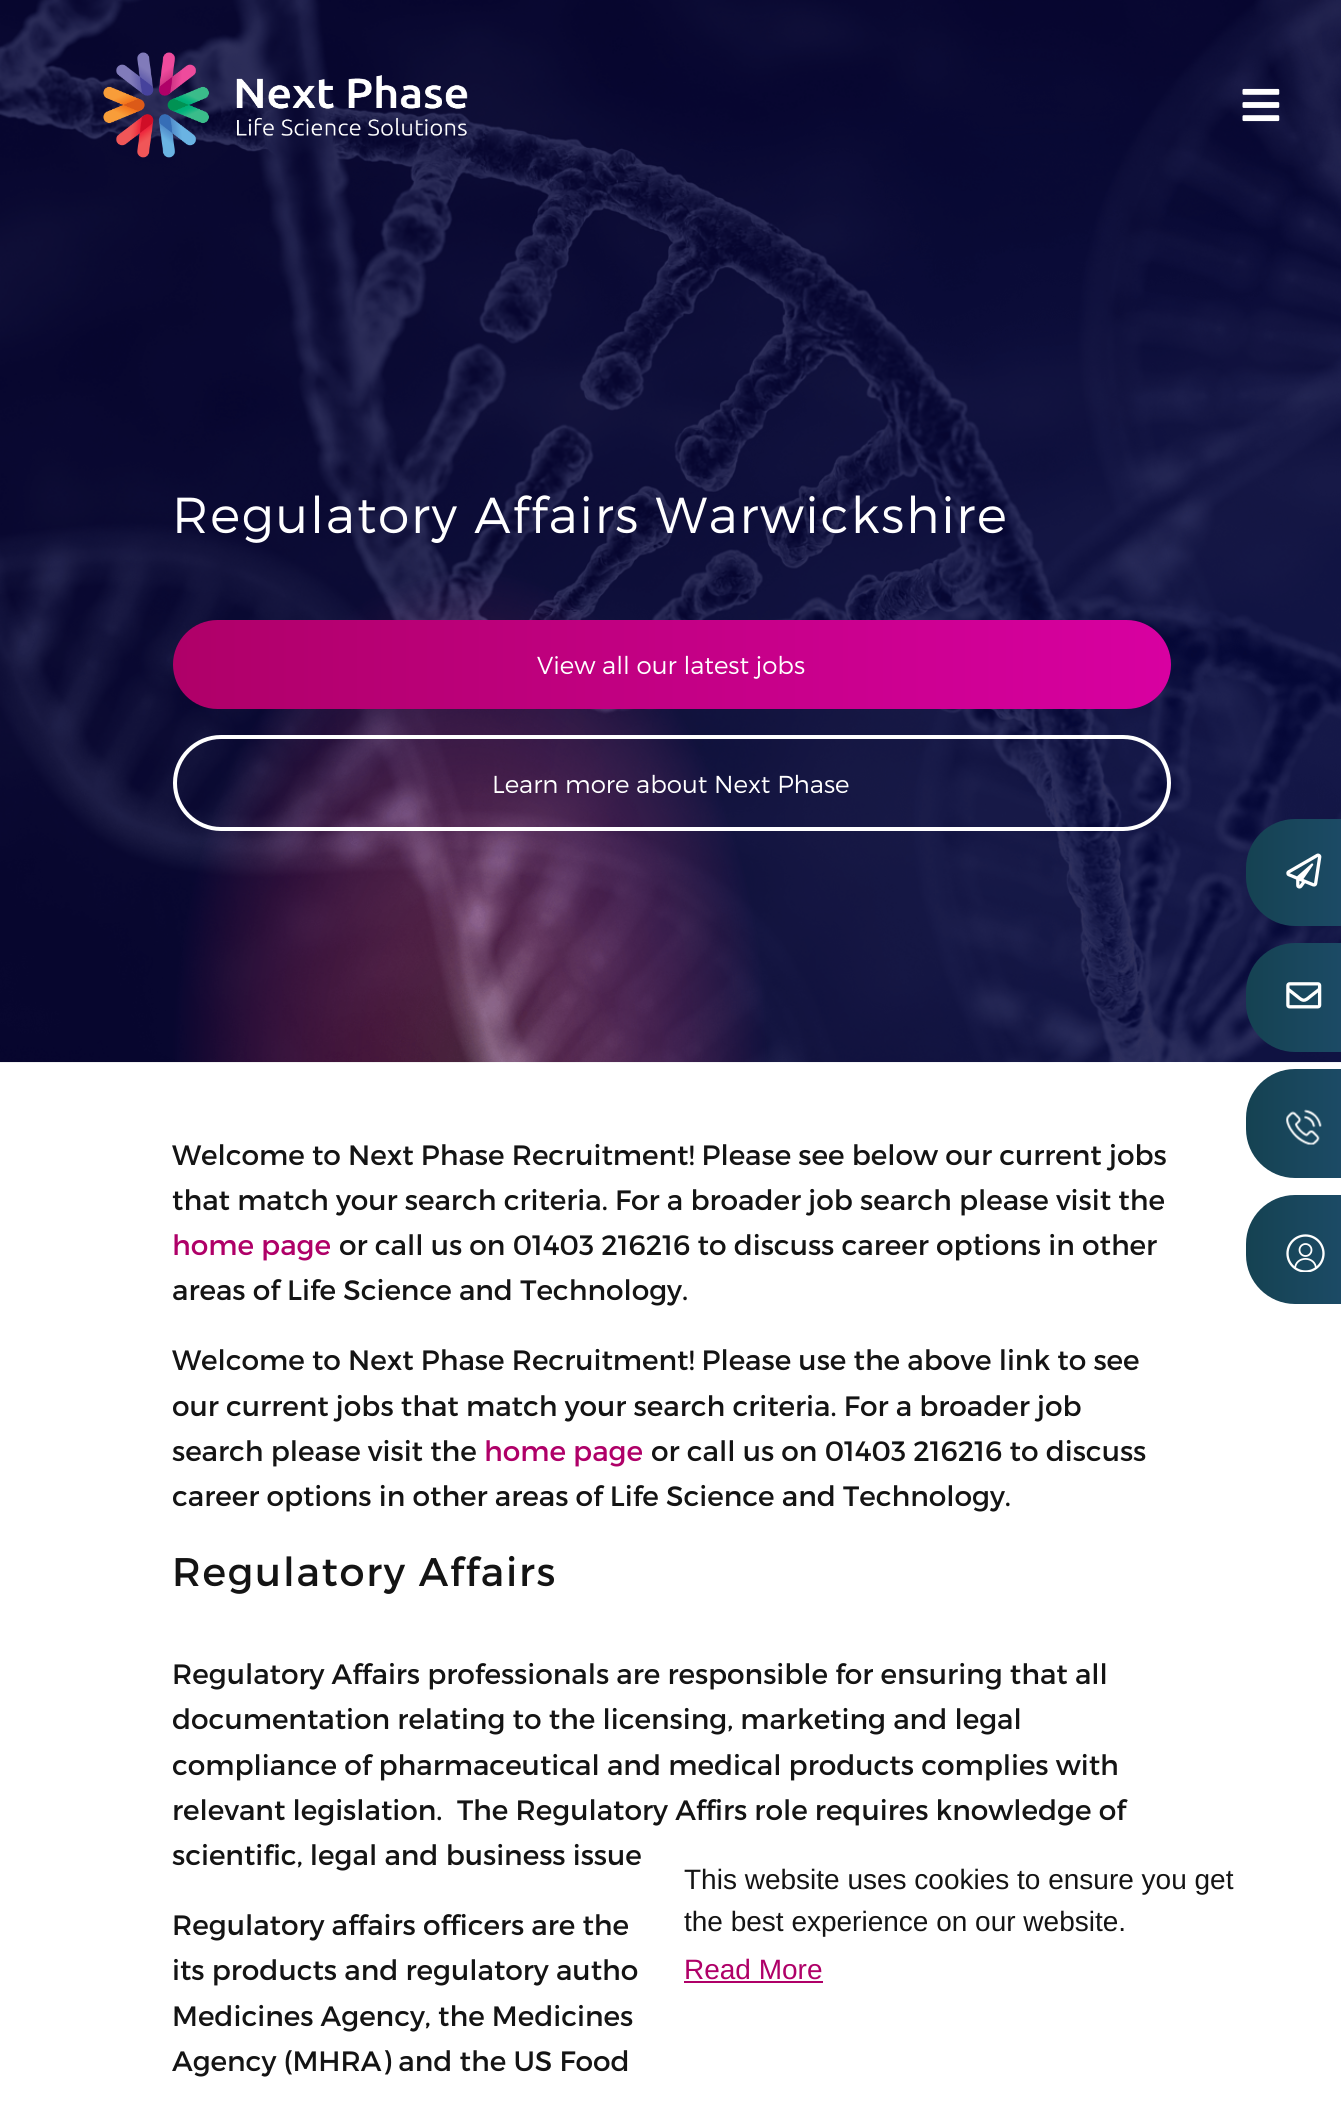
import math
import cairo


def use_color(cr, r, g, b):
  cr.set_source_rgb(r / 255, g / 255, b / 255)

def text(cr, x, y, s, family, size, color, bold=False, italic=False):
  cr.select_font_face(family, cairo.FONT_SLANT_ITALIC if italic else cairo.FONT_SLANT_NORMAL, cairo.FONT_WEIGHT_BOLD if bold else cairo.FONT_WEIGHT_NORMAL)
  cr.set_font_size(size)
  use_color(cr, *color)
  cr.move_to(x, y)
  cr.show_text(s)

def spaced_text(cr, x, y, s, letter, word):
  cr.move_to(x, y)
  for ch in s:
    cr.show_text(ch)
    cr.rel_move_to(letter + word * (ch == ' '), 0)

def box(cr, x, y, w, h, *color):
  use_color(cr, *color)
  cr.rectangle(x, y, w, h)
  cr.fill()

def round_rect(cr, x, y, w, h, r):
  cr.new_sub_path()
  for i, (u, v) in enumerate([(x + w - r, y + h - r), (x + r, y + h - r), (x + r, y + r), (x + w - r, y + r)]):
    cr.arc(u, v, r, i * math.pi / 2, (i + 1) * math.pi / 2)
  cr.close_path()

def picture(cr, path, x, y, w, h):
  cr.save()
  cr.set_source_surface(cairo.ImageSurface.create_from_png(path), x, y)
  cr.rectangle(x, y, w, h)
  cr.fill()
  cr.restore()

def draw(cr):
  use_color(cr, 255, 255, 255)
  cr.paint()
  picture(cr, "img_03.png", 0, 0, 1341, 1063)
  picture(cr, "img_01.png", 103, 52, 365, 106)
  picture(cr, "img_02.png", 1242, 88, 38, 34)
  gradient = cairo.LinearGradient(1171, 664, 173, 664)
  gradient.add_color_stop_rgba(0, 0.847, 0, 0.631, 1)
  gradient.add_color_stop_rgba(1, 0.686, 0, 0.408, 1)
  cr.set_source(gradient)
  round_rect(cr, 173, 620, 998, 89, 44.5)
  cr.fill()
  round_rect(cr, 175, 737, 994, 92, 46)
  use_color(cr, 255, 255, 255)
  cr.set_line_width(4)
  cr.stroke()
  gradient = cairo.LinearGradient(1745, 873, 1246, 873)
  gradient.add_color_stop_rgba(0, 0.224, 0.431, 0.714, 1)
  gradient.add_color_stop_rgba(1, 0.082, 0.259, 0.322, 1)
  cr.set_source(gradient)
  cr.new_path()
  cr.move_to(1295, 819)
  cr.line_to(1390, 819)
  cr.line_to(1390, 926)
  cr.line_to(1295, 926)
  cr.curve_to(1268, 926, 1246, 904, 1246, 877)
  cr.line_to(1246, 868)
  cr.curve_to(1246, 841, 1268, 819, 1295, 819)
  cr.close_path()
  cr.fill()
  picture(cr, "img_04.png", 1286, 853, 36, 36)
  gradient = cairo.LinearGradient(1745, 998, 1246, 998)
  gradient.add_color_stop_rgba(0, 0.224, 0.431, 0.714, 1)
  gradient.add_color_stop_rgba(1, 0.082, 0.259, 0.322, 1)
  cr.set_source(gradient)
  cr.new_path()
  cr.move_to(1295, 943)
  cr.line_to(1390, 943)
  cr.line_to(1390, 1052)
  cr.line_to(1295, 1052)
  cr.curve_to(1268, 1052, 1246, 1030, 1246, 1003)
  cr.line_to(1246, 992)
  cr.curve_to(1246, 965, 1268, 943, 1295, 943)
  cr.close_path()
  cr.fill()
  picture(cr, "img_05.png", 1286, 982, 36, 27)
  gradient = cairo.LinearGradient(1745, 1124, 1246, 1124)
  gradient.add_color_stop_rgba(0, 0.224, 0.431, 0.714, 1)
  gradient.add_color_stop_rgba(1, 0.082, 0.259, 0.322, 1)
  cr.set_source(gradient)
  cr.new_path()
  cr.move_to(1295, 1069)
  cr.line_to(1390, 1069)
  cr.line_to(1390, 1178)
  cr.line_to(1295, 1178)
  cr.curve_to(1268, 1178, 1246, 1156, 1246, 1129)
  cr.line_to(1246, 1118)
  cr.curve_to(1246, 1091, 1268, 1069, 1295, 1069)
  cr.close_path()
  cr.fill()
  picture(cr, "img_06.png", 1286, 1109, 36, 36)
  gradient = cairo.LinearGradient(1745, 1250, 1246, 1250)
  gradient.add_color_stop_rgba(0, 0.224, 0.431, 0.714, 1)
  gradient.add_color_stop_rgba(1, 0.082, 0.259, 0.322, 1)
  cr.set_source(gradient)
  cr.new_path()
  cr.move_to(1295, 1195)
  cr.line_to(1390, 1195)
  cr.line_to(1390, 1304)
  cr.line_to(1295, 1304)
  cr.curve_to(1268, 1304, 1246, 1282, 1246, 1255)
  cr.line_to(1246, 1244)
  cr.curve_to(1246, 1217, 1268, 1195, 1295, 1195)
  cr.close_path()
  cr.fill()
  cr.save()
  cr.rectangle(1286, 1234, 39, 38)
  cr.clip()
  cr.arc(1305.5, 1253.5, 18, 0, 2 * math.pi)
  use_color(cr, 255, 255, 255)
  cr.set_line_width(2.3)
  cr.stroke()
  cr.restore()
  cr.arc(1305.5, 1250, 6, 0, 2 * math.pi)
  use_color(cr, 255, 255, 255)
  cr.set_line_width(1.8)
  cr.stroke()
  cr.new_path()
  cr.move_to(1316, 1269)
  cr.curve_to(1316, 1255.5, 1295, 1255.5, 1295, 1269)
  cr.stroke()
  box(cr, 684, 1981, 139, 2, 175, 0, 104)
  cr.select_font_face("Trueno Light")
  cr.set_font_size(50.5)
  use_color(cr, 255, 255, 255)
  spaced_text(cr, 172, 533, "Regulatory Affairs Warwickshire", 1.75, 0)
  text(cr, 537, 674, "View all our latest jobs", "Trueno Light", 24.5, (255, 255, 255))
  text(cr, 492, 793, "Learn more about Next Phase", "Trueno Light", 24.5, (255, 255, 255))
  text(cr, 172, 1165, "Welcome to Next Phase Recruitment! Please see below our current jobs", "Trueno", 28, (20, 20, 20))
  text(cr, 172, 1210, "that match your search criteria. For a broader job search please visit the", "Trueno", 28, (20, 20, 20))
  text(cr, 172, 1255, "home page", "Trueno", 28, (175, 0, 104))
  text(cr, 339, 1255, "or call us on 01403 216216 to discuss career options in other", "Trueno", 28, (20, 20, 20))
  text(cr, 172, 1300, "areas of Life Science and Technology.", "Trueno", 28, (20, 20, 20))
  text(cr, 172, 1370, "Welcome to Next Phase Recruitment! Please use the above link to see", "Trueno", 28, (20, 20, 20))
  text(cr, 172, 1416, "our current jobs that match your search criteria. For a broader job", "Trueno", 28, (20, 20, 20))
  text(cr, 172, 1461, "search please visit the", "Trueno", 28, (20, 20, 20))
  text(cr, 484, 1461, "home page", "Trueno", 28, (175, 0, 104))
  text(cr, 651, 1461, "or call us on 01403 216216 to discuss", "Trueno", 28, (20, 20, 20))
  text(cr, 172, 1506, "career options in other areas of Life Science and Technology.", "Trueno", 28, (20, 20, 20))
  cr.set_font_size(39.9)
  spaced_text(cr, 172, 1586, "Regulatory Affairs", 1.75, 0)
  text(cr, 172, 1684, "Regulatory Affairs professionals are responsible for ensuring that all", "Trueno", 28, (20, 20, 20))
  text(cr, 172, 1729, "documentation relating to the licensing, marketing and legal", "Trueno", 28, (20, 20, 20))
  text(cr, 172, 1775, "compliance of pharmaceutical and medical products complies with", "Trueno", 28, (20, 20, 20))
  text(cr, 172, 1820, "relevant legislation.  The Regulatory Affirs role requires knowledge of", "Trueno", 28, (20, 20, 20))
  text(cr, 172, 1865, "scientific, legal and business issue", "Trueno", 28, (20, 20, 20))
  text(cr, 172, 1935, "Regulatory affairs officers are the", "Trueno", 28, (20, 20, 20))
  text(cr, 172, 1980, "its products and regulatory autho", "Trueno", 28, (20, 20, 20))
  text(cr, 172, 2026, "Medicines Agency, the Medicines", "Trueno", 28, (20, 20, 20))
  text(cr, 172, 2071, "Agency (MHRA) and the US Food", "Trueno", 28, (20, 20, 20))
  text(cr, 684, 1889, "This website uses cookies to ensure you get", "Liberation Sans", 28, (20, 20, 20))
  text(cr, 684, 1931, "the best experience on our website.", "Liberation Sans", 28, (20, 20, 20))
  text(cr, 684, 1979, "Read More", "Liberation Sans", 28, (175, 0, 104))


surface = cairo.ImageSurface(cairo.FORMAT_RGB24, 1341, 2122)
cr = cairo.Context(surface)
options = cairo.FontOptions()
options.set_hint_metrics(cairo.HINT_METRICS_OFF)
options.set_hint_style(cairo.HINT_STYLE_NONE)
cr.set_font_options(options)
cr.set_miter_limit(4)
draw(cr)
surface.write_to_png("out.png")
